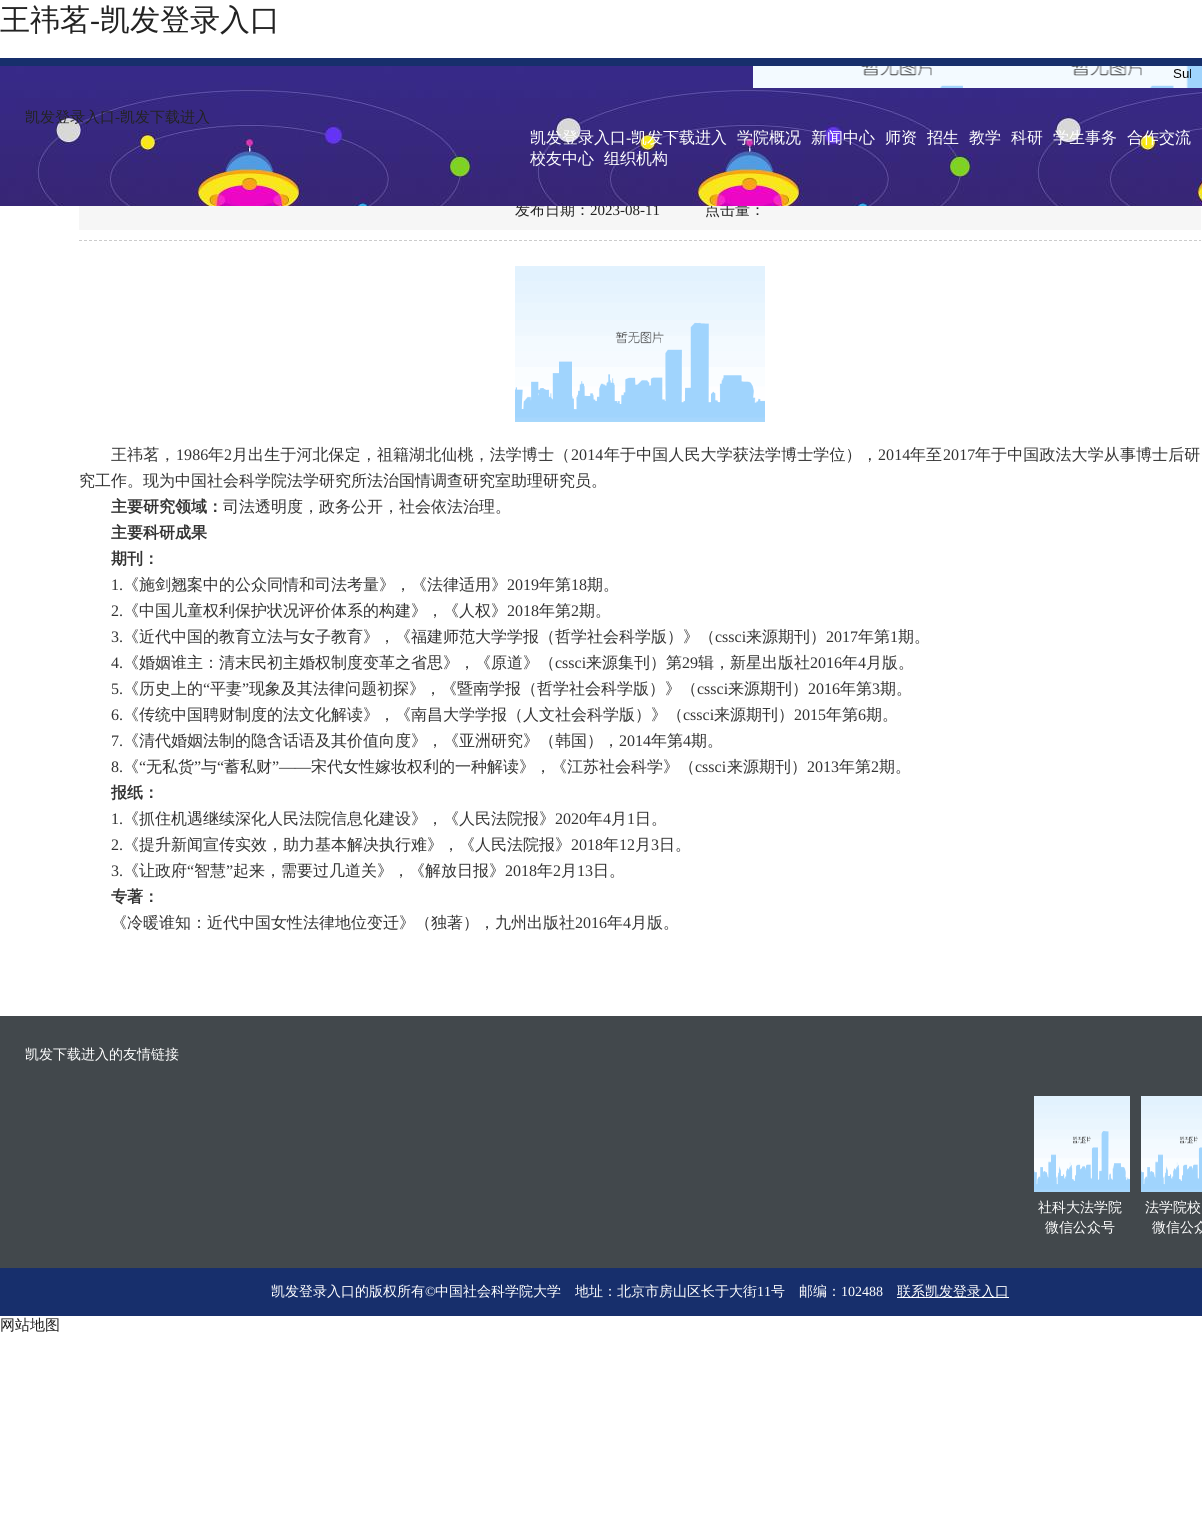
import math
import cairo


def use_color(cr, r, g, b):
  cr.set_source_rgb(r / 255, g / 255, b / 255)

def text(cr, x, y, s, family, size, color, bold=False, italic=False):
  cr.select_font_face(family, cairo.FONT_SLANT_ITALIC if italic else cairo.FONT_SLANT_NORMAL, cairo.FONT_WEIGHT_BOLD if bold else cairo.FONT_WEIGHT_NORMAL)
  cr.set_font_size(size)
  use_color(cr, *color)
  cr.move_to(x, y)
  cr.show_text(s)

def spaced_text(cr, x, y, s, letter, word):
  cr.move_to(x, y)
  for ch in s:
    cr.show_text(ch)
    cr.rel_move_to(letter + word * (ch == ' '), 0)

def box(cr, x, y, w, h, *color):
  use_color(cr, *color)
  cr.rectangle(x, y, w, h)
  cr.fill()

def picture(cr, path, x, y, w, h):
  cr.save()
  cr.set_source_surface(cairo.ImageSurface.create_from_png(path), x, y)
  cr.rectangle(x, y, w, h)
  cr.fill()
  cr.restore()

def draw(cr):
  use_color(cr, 255, 255, 255)
  cr.paint()
  box(cr, 0, 58, 1202, 8, 23, 47, 108)
  cr.new_path()
  cr.move_to(79, 240.5)
  cr.line_to(1201, 240.5)
  use_color(cr, 204, 204, 204)
  cr.set_line_width(1)
  cr.set_dash([3, 2])
  cr.stroke()
  box(cr, 79, 206, 1122, 24, 246, 246, 246)
  picture(cr, "img_05.png", 515, 266, 250, 156)
  box(cr, 0, 1016, 1202, 252, 66, 72, 76)
  picture(cr, "img_06.png", 1034, 1096, 96, 96)
  picture(cr, "img_07.png", 1141, 1096, 61, 96)
  box(cr, 0, 1268, 1202, 48, 23, 47, 108)
  box(cr, 897, 1297, 112, 1, 255, 255, 255)
  text(cr, 0, 30, "王祎茗", "WenQuanYi Zen Hei Medium", 30, (34, 34, 34))
  text(cr, 90, 30, "-", "Liberation Serif", 30, (34, 34, 34))
  text(cr, 100, 30, "凯发登录入口", "WenQuanYi Zen Hei Medium", 30, (34, 34, 34))
  text(cr, 515, 215, "发布日期：", "WenQuanYi Zen Hei Medium", 15, (34, 34, 34))
  text(cr, 590, 215, "2023-08-11", "Liberation Serif", 15, (34, 34, 34))
  text(cr, 705, 215, "点击量：", "WenQuanYi Zen Hei Medium", 15, (34, 34, 34))
  picture(cr, "img_01.png", 0, 66, 1202, 140)
  text(cr, 604, 164, "组织机构", "WenQuanYi Zen Hei Medium", 16, (255, 255, 255))
  text(cr, 530, 164, "校友中心", "WenQuanYi Zen Hei Medium", 16, (255, 255, 255))
  text(cr, 1127, 143, "合作交流", "WenQuanYi Zen Hei Medium", 16, (255, 255, 255))
  text(cr, 1053, 143, "学生事务", "WenQuanYi Zen Hei Medium", 16, (255, 255, 255))
  text(cr, 1011, 143, "科研", "WenQuanYi Zen Hei Medium", 16, (255, 255, 255))
  text(cr, 969, 143, "教学", "WenQuanYi Zen Hei Medium", 16, (255, 255, 255))
  text(cr, 927, 143, "招生", "WenQuanYi Zen Hei Medium", 16, (255, 255, 255))
  text(cr, 885, 143, "师资", "WenQuanYi Zen Hei Medium", 16, (255, 255, 255))
  text(cr, 811, 143, "新闻中心", "WenQuanYi Zen Hei Medium", 16, (255, 255, 255))
  text(cr, 737, 143, "学院概况", "WenQuanYi Zen Hei Medium", 16, (255, 255, 255))
  text(cr, 631, 143, "凯发下载进入", "WenQuanYi Zen Hei Medium", 16, (255, 255, 255))
  text(cr, 626, 143, "-", "Liberation Serif", 16, (255, 255, 255))
  text(cr, 530, 143, "凯发登录入口", "WenQuanYi Zen Hei Medium", 16, (255, 255, 255))
  text(cr, 120, 122, "凯发下载进入", "WenQuanYi Zen Hei Medium", 15, (34, 34, 34))
  text(cr, 115, 122, "-", "Liberation Serif", 15, (34, 34, 34))
  text(cr, 25, 122, "凯发登录入口", "WenQuanYi Zen Hei Medium", 15, (34, 34, 34))
  picture(cr, "img_03.png", 963, 66, 239, 22)
  picture(cr, "img_04.png", 1173, 69, 18, 9)
  picture(cr, "img_02.png", 753, 66, 210, 22)
  cr.set_font_size(16)
  use_color(cr, 51, 51, 51)
  spaced_text(cr, 111, 460, "王祎茗，", 0.1, 0)
  cr.select_font_face("Liberation Serif")
  spaced_text(cr, 176, 460, "1986", 0.1, 0)
  cr.select_font_face("WenQuanYi Zen Hei Medium")
  spaced_text(cr, 208, 460, "年", 0.1, 0)
  cr.select_font_face("Liberation Serif")
  spaced_text(cr, 224, 460, "2", 0.1, 0)
  cr.select_font_face("WenQuanYi Zen Hei Medium")
  spaced_text(cr, 232, 460, "月出生于河北保定，祖籍湖北仙桃，法学博士（", 0.1, 0)
  cr.select_font_face("Liberation Serif")
  spaced_text(cr, 571, 460, "2014", 0.1, 0)
  cr.select_font_face("WenQuanYi Zen Hei Medium")
  spaced_text(cr, 604, 460, "年于中国人民大学获法学博士学位），", 0.1, 0)
  cr.select_font_face("Liberation Serif")
  spaced_text(cr, 878, 460, "2014", 0.1, 0)
  cr.select_font_face("WenQuanYi Zen Hei Medium")
  spaced_text(cr, 910, 460, "年至", 0.1, 0)
  cr.select_font_face("Liberation Serif")
  spaced_text(cr, 943, 460, "2017", 0.1, 0)
  cr.select_font_face("WenQuanYi Zen Hei Medium")
  spaced_text(cr, 975, 460, "年于中国政法大学从事博士后研", 0.1, 0)
  text(cr, 79, 486, "究工作。现为中国社会科学院法学研究所法治国情调查研究室助理研究员。", "WenQuanYi Zen Hei Medium", 16, (51, 51, 51))
  text(cr, 111, 512, "主要研究领域：", "WenQuanYi Zen Hei", 16, (51, 51, 51), bold=True)
  text(cr, 223, 512, "司法透明度，政务公开，社会依法治理。", "WenQuanYi Zen Hei Medium", 16, (51, 51, 51))
  text(cr, 111, 538, "主要科研成果", "WenQuanYi Zen Hei", 16, (51, 51, 51), bold=True)
  text(cr, 111, 564, "期刊：", "WenQuanYi Zen Hei", 16, (51, 51, 51), bold=True)
  text(cr, 111, 590, "1.", "Liberation Serif", 16, (51, 51, 51))
  text(cr, 123, 590, "《施剑翘案中的公众同情和司法考量》，《法律适用》", "WenQuanYi Zen Hei Medium", 16, (51, 51, 51))
  text(cr, 507, 590, "2019", "Liberation Serif", 16, (51, 51, 51))
  text(cr, 539, 590, "年第", "WenQuanYi Zen Hei Medium", 16, (51, 51, 51))
  text(cr, 571, 590, "18", "Liberation Serif", 16, (51, 51, 51))
  text(cr, 587, 590, "期。", "WenQuanYi Zen Hei Medium", 16, (51, 51, 51))
  text(cr, 111, 616, "2.", "Liberation Serif", 16, (51, 51, 51))
  text(cr, 123, 616, "《中国儿童权利保护状况评价体系的构建》，《人权》", "WenQuanYi Zen Hei Medium", 16, (51, 51, 51))
  text(cr, 507, 616, "2018", "Liberation Serif", 16, (51, 51, 51))
  text(cr, 539, 616, "年第", "WenQuanYi Zen Hei Medium", 16, (51, 51, 51))
  text(cr, 571, 616, "2", "Liberation Serif", 16, (51, 51, 51))
  text(cr, 579, 616, "期。", "WenQuanYi Zen Hei Medium", 16, (51, 51, 51))
  text(cr, 111, 642, "3.", "Liberation Serif", 16, (51, 51, 51))
  text(cr, 123, 642, "《近代中国的教育立法与女子教育》，《福建师范大学学报（哲学社会科学版）》（", "WenQuanYi Zen Hei Medium", 16, (51, 51, 51))
  text(cr, 715, 642, "cssci", "Liberation Serif", 16, (51, 51, 51))
  text(cr, 746, 642, "来源期刊）", "WenQuanYi Zen Hei Medium", 16, (51, 51, 51))
  text(cr, 826, 642, "2017", "Liberation Serif", 16, (51, 51, 51))
  text(cr, 858, 642, "年第", "WenQuanYi Zen Hei Medium", 16, (51, 51, 51))
  text(cr, 890, 642, "1", "Liberation Serif", 16, (51, 51, 51))
  text(cr, 898, 642, "期。", "WenQuanYi Zen Hei Medium", 16, (51, 51, 51))
  text(cr, 111, 668, "4.", "Liberation Serif", 16, (51, 51, 51))
  text(cr, 123, 668, "《婚姻谁主：清末民初主婚权制度变革之省思》，《原道》（", "WenQuanYi Zen Hei Medium", 16, (51, 51, 51))
  text(cr, 555, 668, "cssci", "Liberation Serif", 16, (51, 51, 51))
  text(cr, 586, 668, "来源集刊）第", "WenQuanYi Zen Hei Medium", 16, (51, 51, 51))
  text(cr, 682, 668, "29", "Liberation Serif", 16, (51, 51, 51))
  text(cr, 698, 668, "辑，新星出版社", "WenQuanYi Zen Hei Medium", 16, (51, 51, 51))
  text(cr, 810, 668, "2016", "Liberation Serif", 16, (51, 51, 51))
  text(cr, 842, 668, "年", "WenQuanYi Zen Hei Medium", 16, (51, 51, 51))
  text(cr, 858, 668, "4", "Liberation Serif", 16, (51, 51, 51))
  text(cr, 866, 668, "月版。", "WenQuanYi Zen Hei Medium", 16, (51, 51, 51))
  text(cr, 111, 694, "5.", "Liberation Serif", 16, (51, 51, 51))
  text(cr, 123, 694, "《历史上的", "WenQuanYi Zen Hei Medium", 16, (51, 51, 51))
  text(cr, 203, 694, "“", "Liberation Serif", 16, (51, 51, 51))
  text(cr, 210, 694, "平妻", "WenQuanYi Zen Hei Medium", 16, (51, 51, 51))
  text(cr, 242, 694, "”", "Liberation Serif", 16, (51, 51, 51))
  text(cr, 249, 694, "现象及其法律问题初探》，《暨南学报（哲学社会科学版）》（", "WenQuanYi Zen Hei Medium", 16, (51, 51, 51))
  text(cr, 697, 694, "cssci", "Liberation Serif", 16, (51, 51, 51))
  text(cr, 728, 694, "来源期刊）", "WenQuanYi Zen Hei Medium", 16, (51, 51, 51))
  text(cr, 808, 694, "2016", "Liberation Serif", 16, (51, 51, 51))
  text(cr, 840, 694, "年第", "WenQuanYi Zen Hei Medium", 16, (51, 51, 51))
  text(cr, 872, 694, "3", "Liberation Serif", 16, (51, 51, 51))
  text(cr, 880, 694, "期。", "WenQuanYi Zen Hei Medium", 16, (51, 51, 51))
  text(cr, 111, 720, "6.", "Liberation Serif", 16, (51, 51, 51))
  text(cr, 123, 720, "《传统中国聘财制度的法文化解读》，《南昌大学学报（人文社会科学版）》（", "WenQuanYi Zen Hei Medium", 16, (51, 51, 51))
  text(cr, 683, 720, "cssci", "Liberation Serif", 16, (51, 51, 51))
  text(cr, 714, 720, "来源期刊）", "WenQuanYi Zen Hei Medium", 16, (51, 51, 51))
  text(cr, 794, 720, "2015", "Liberation Serif", 16, (51, 51, 51))
  text(cr, 826, 720, "年第", "WenQuanYi Zen Hei Medium", 16, (51, 51, 51))
  text(cr, 858, 720, "6", "Liberation Serif", 16, (51, 51, 51))
  text(cr, 866, 720, "期。", "WenQuanYi Zen Hei Medium", 16, (51, 51, 51))
  text(cr, 111, 746, "7.", "Liberation Serif", 16, (51, 51, 51))
  text(cr, 123, 746, "《清代婚姻法制的隐含话语及其价值向度》，《亚洲研究》（韩国），", "WenQuanYi Zen Hei Medium", 16, (51, 51, 51))
  text(cr, 619, 746, "2014", "Liberation Serif", 16, (51, 51, 51))
  text(cr, 651, 746, "年第", "WenQuanYi Zen Hei Medium", 16, (51, 51, 51))
  text(cr, 683, 746, "4", "Liberation Serif", 16, (51, 51, 51))
  text(cr, 691, 746, "期。", "WenQuanYi Zen Hei Medium", 16, (51, 51, 51))
  text(cr, 111, 772, "8.", "Liberation Serif", 16, (51, 51, 51))
  text(cr, 123, 772, "《", "WenQuanYi Zen Hei Medium", 16, (51, 51, 51))
  text(cr, 139, 772, "“", "Liberation Serif", 16, (51, 51, 51))
  text(cr, 146, 772, "无私货", "WenQuanYi Zen Hei Medium", 16, (51, 51, 51))
  text(cr, 194, 772, "”", "Liberation Serif", 16, (51, 51, 51))
  text(cr, 201, 772, "与", "WenQuanYi Zen Hei Medium", 16, (51, 51, 51))
  text(cr, 217, 772, "“", "Liberation Serif", 16, (51, 51, 51))
  text(cr, 224, 772, "蓄私财", "WenQuanYi Zen Hei Medium", 16, (51, 51, 51))
  text(cr, 272, 772, "”——", "Liberation Serif", 16, (51, 51, 51))
  text(cr, 311, 772, "宋代女性嫁妆权利的一种解读》，《江苏社会科学》（", "WenQuanYi Zen Hei Medium", 16, (51, 51, 51))
  text(cr, 695, 772, "cssci", "Liberation Serif", 16, (51, 51, 51))
  text(cr, 727, 772, "来源期刊）", "WenQuanYi Zen Hei Medium", 16, (51, 51, 51))
  text(cr, 807, 772, "2013", "Liberation Serif", 16, (51, 51, 51))
  text(cr, 839, 772, "年第", "WenQuanYi Zen Hei Medium", 16, (51, 51, 51))
  text(cr, 871, 772, "2", "Liberation Serif", 16, (51, 51, 51))
  text(cr, 879, 772, "期。", "WenQuanYi Zen Hei Medium", 16, (51, 51, 51))
  text(cr, 111, 798, "报纸：", "WenQuanYi Zen Hei", 16, (51, 51, 51), bold=True)
  text(cr, 111, 824, "1.", "Liberation Serif", 16, (51, 51, 51))
  text(cr, 123, 824, "《抓住机遇继续深化人民法院信息化建设》，《人民法院报》", "WenQuanYi Zen Hei Medium", 16, (51, 51, 51))
  text(cr, 555, 824, "2020", "Liberation Serif", 16, (51, 51, 51))
  text(cr, 587, 824, "年", "WenQuanYi Zen Hei Medium", 16, (51, 51, 51))
  text(cr, 603, 824, "4", "Liberation Serif", 16, (51, 51, 51))
  text(cr, 611, 824, "月", "WenQuanYi Zen Hei Medium", 16, (51, 51, 51))
  text(cr, 627, 824, "1", "Liberation Serif", 16, (51, 51, 51))
  text(cr, 635, 824, "日。", "WenQuanYi Zen Hei Medium", 16, (51, 51, 51))
  text(cr, 111, 850, "2.", "Liberation Serif", 16, (51, 51, 51))
  text(cr, 123, 850, "《提升新闻宣传实效，助力基本解决执行难》，《人民法院报》", "WenQuanYi Zen Hei Medium", 16, (51, 51, 51))
  text(cr, 571, 850, "2018", "Liberation Serif", 16, (51, 51, 51))
  text(cr, 603, 850, "年", "WenQuanYi Zen Hei Medium", 16, (51, 51, 51))
  text(cr, 619, 850, "12", "Liberation Serif", 16, (51, 51, 51))
  text(cr, 635, 850, "月", "WenQuanYi Zen Hei Medium", 16, (51, 51, 51))
  text(cr, 651, 850, "3", "Liberation Serif", 16, (51, 51, 51))
  text(cr, 659, 850, "日。", "WenQuanYi Zen Hei Medium", 16, (51, 51, 51))
  text(cr, 111, 876, "3.", "Liberation Serif", 16, (51, 51, 51))
  text(cr, 123, 876, "《让政府", "WenQuanYi Zen Hei Medium", 16, (51, 51, 51))
  text(cr, 187, 876, "“", "Liberation Serif", 16, (51, 51, 51))
  text(cr, 194, 876, "智慧", "WenQuanYi Zen Hei Medium", 16, (51, 51, 51))
  text(cr, 226, 876, "”", "Liberation Serif", 16, (51, 51, 51))
  text(cr, 233, 876, "起来，需要过几道关》，《解放日报》", "WenQuanYi Zen Hei Medium", 16, (51, 51, 51))
  text(cr, 505, 876, "2018", "Liberation Serif", 16, (51, 51, 51))
  text(cr, 537, 876, "年", "WenQuanYi Zen Hei Medium", 16, (51, 51, 51))
  text(cr, 553, 876, "2", "Liberation Serif", 16, (51, 51, 51))
  text(cr, 561, 876, "月", "WenQuanYi Zen Hei Medium", 16, (51, 51, 51))
  text(cr, 577, 876, "13", "Liberation Serif", 16, (51, 51, 51))
  text(cr, 593, 876, "日。", "WenQuanYi Zen Hei Medium", 16, (51, 51, 51))
  text(cr, 111, 902, "专著：", "WenQuanYi Zen Hei", 16, (51, 51, 51), bold=True)
  text(cr, 111, 928, "《冷暖谁知：近代中国女性法律地位变迁》（独著），九州出版社", "WenQuanYi Zen Hei Medium", 16, (51, 51, 51))
  text(cr, 575, 928, "2016", "Liberation Serif", 16, (51, 51, 51))
  text(cr, 607, 928, "年", "WenQuanYi Zen Hei Medium", 16, (51, 51, 51))
  text(cr, 623, 928, "4", "Liberation Serif", 16, (51, 51, 51))
  text(cr, 631, 928, "月版。", "WenQuanYi Zen Hei Medium", 16, (51, 51, 51))
  text(cr, 25, 1059, "凯发下载进入的友情链接", "WenQuanYi Zen Hei Medium", 14, (255, 255, 255))
  text(cr, 1038, 1212, "社科大法学院", "WenQuanYi Zen Hei Medium", 14, (255, 255, 255))
  text(cr, 1045, 1232, "微信公众号", "WenQuanYi Zen Hei Medium", 14, (255, 255, 255))
  text(cr, 1145, 1212, "法学院校", "WenQuanYi Zen Hei Medium", 14, (255, 255, 255))
  text(cr, 1152, 1232, "微信公众", "WenQuanYi Zen Hei Medium", 14, (255, 255, 255))
  text(cr, 271, 1296, "凯发登录入口的版权所有", "WenQuanYi Zen Hei Medium", 14, (255, 255, 255))
  text(cr, 425, 1296, "©", "Liberation Serif", 14, (255, 255, 255))
  text(cr, 435, 1296, "中国社会科学院大学　地址：北京市房山区长于大街", "WenQuanYi Zen Hei Medium", 14, (255, 255, 255))
  text(cr, 757, 1296, "11", "Liberation Serif", 14, (255, 255, 255))
  text(cr, 771, 1296, "号　邮编：", "WenQuanYi Zen Hei Medium", 14, (255, 255, 255))
  text(cr, 841, 1296, "102488", "Liberation Serif", 14, (255, 255, 255))
  text(cr, 897, 1296, "联系凯发登录入口", "WenQuanYi Zen Hei Medium", 14, (255, 255, 255))
  text(cr, 0, 1330, "网站地图", "WenQuanYi Zen Hei Medium", 15, (34, 34, 34))


surface = cairo.ImageSurface(cairo.FORMAT_RGB24, 1202, 1518)
cr = cairo.Context(surface)
options = cairo.FontOptions()
options.set_hint_metrics(cairo.HINT_METRICS_OFF)
options.set_hint_style(cairo.HINT_STYLE_NONE)
cr.set_font_options(options)
cr.set_miter_limit(4)
draw(cr)
surface.write_to_png("out.png")
